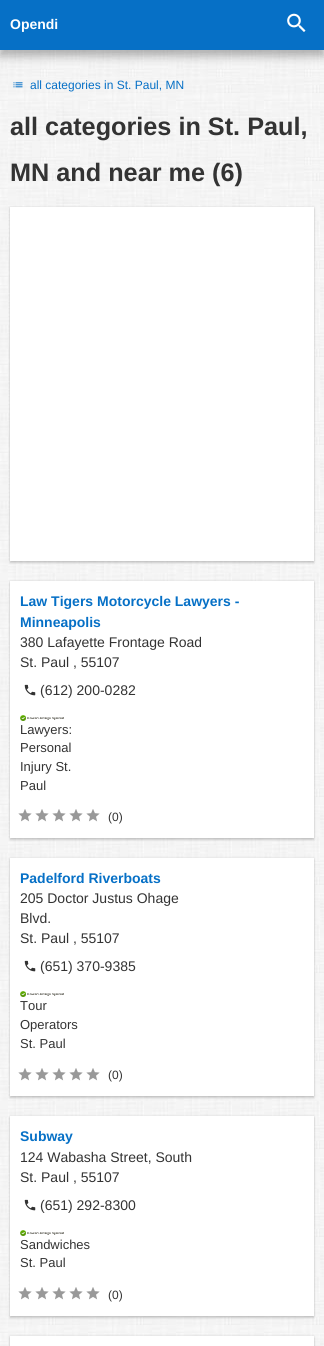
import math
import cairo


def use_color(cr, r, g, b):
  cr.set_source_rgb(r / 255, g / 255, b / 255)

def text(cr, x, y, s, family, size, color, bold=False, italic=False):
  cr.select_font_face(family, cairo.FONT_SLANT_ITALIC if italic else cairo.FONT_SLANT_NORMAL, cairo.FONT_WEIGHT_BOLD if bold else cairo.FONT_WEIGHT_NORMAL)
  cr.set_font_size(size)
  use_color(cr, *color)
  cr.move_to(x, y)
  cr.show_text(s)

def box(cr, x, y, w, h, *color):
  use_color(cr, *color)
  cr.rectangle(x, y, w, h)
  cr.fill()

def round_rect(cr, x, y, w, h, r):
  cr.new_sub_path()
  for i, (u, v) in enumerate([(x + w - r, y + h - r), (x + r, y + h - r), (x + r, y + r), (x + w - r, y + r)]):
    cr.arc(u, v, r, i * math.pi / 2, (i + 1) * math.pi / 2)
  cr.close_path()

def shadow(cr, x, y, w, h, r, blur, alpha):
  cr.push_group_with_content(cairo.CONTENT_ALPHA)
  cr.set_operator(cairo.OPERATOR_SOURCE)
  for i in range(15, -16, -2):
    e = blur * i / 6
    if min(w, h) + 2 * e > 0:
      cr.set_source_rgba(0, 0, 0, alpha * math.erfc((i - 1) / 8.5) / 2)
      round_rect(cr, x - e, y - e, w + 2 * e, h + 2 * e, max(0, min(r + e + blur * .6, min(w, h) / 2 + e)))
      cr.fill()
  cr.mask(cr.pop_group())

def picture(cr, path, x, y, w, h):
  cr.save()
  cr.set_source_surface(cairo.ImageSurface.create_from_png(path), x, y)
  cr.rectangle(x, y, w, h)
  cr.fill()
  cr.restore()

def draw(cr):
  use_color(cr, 255, 255, 255)
  cr.paint()
  picture(cr, "img_01.png", 0, 50, 324, 1296)
  use_color(cr, 0, 0, 0)
  shadow(cr, 0, 6, 324, 50, 0, 5, 0.3)
  box(cr, 0, 0, 324, 50, 6, 112, 198)
  picture(cr, "img_02.png", 287, 13, 19, 19)
  picture(cr, "img_03.png", 13, 82, 10, 6)
  use_color(cr, 0, 0, 0)
  shadow(cr, 10, 207, 304, 354, 0, 1, 0.12)
  shadow(cr, 10, 209, 304, 354, 0, 1, 0.16)
  box(cr, 10, 207, 304, 354, 255, 255, 255)
  use_color(cr, 0, 0, 0)
  shadow(cr, 10, 581, 304, 257, 0, 1, 0.12)
  shadow(cr, 10, 583, 304, 257, 0, 1, 0.16)
  box(cr, 10, 581, 304, 257, 255, 255, 255)
  picture(cr, "img_04.png", 24, 684, 12, 12)
  picture(cr, "img_05.png", 20, 715, 44, 6)
  picture(cr, "img_06.png", 18, 809, 14, 13)
  picture(cr, "img_06.png", 35, 809, 14, 13)
  picture(cr, "img_06.png", 52, 809, 14, 13)
  picture(cr, "img_06.png", 69, 809, 14, 13)
  picture(cr, "img_06.png", 86, 809, 14, 13)
  use_color(cr, 0, 0, 0)
  shadow(cr, 10, 858, 304, 238, 0, 1, 0.12)
  shadow(cr, 10, 860, 304, 238, 0, 1, 0.16)
  box(cr, 10, 858, 304, 238, 255, 255, 255)
  picture(cr, "img_04.png", 24, 960, 12, 12)
  picture(cr, "img_05.png", 20, 991, 44, 6)
  picture(cr, "img_06.png", 18, 1068, 14, 13)
  picture(cr, "img_06.png", 35, 1068, 14, 13)
  picture(cr, "img_06.png", 52, 1068, 14, 13)
  picture(cr, "img_06.png", 69, 1068, 14, 13)
  picture(cr, "img_06.png", 86, 1068, 14, 13)
  use_color(cr, 0, 0, 0)
  shadow(cr, 10, 1116, 304, 200, 0, 1, 0.12)
  shadow(cr, 10, 1118, 304, 200, 0, 1, 0.16)
  box(cr, 10, 1116, 304, 200, 255, 255, 255)
  picture(cr, "img_04.png", 24, 1199, 12, 12)
  picture(cr, "img_05.png", 20, 1230, 44, 6)
  picture(cr, "img_06.png", 18, 1287, 14, 13)
  picture(cr, "img_06.png", 35, 1287, 14, 13)
  picture(cr, "img_06.png", 52, 1287, 14, 13)
  picture(cr, "img_06.png", 69, 1287, 14, 13)
  picture(cr, "img_06.png", 86, 1287, 14, 13)
  use_color(cr, 0, 0, 0)
  shadow(cr, 10, 1336, 304, 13, 0, 1, 0.12)
  shadow(cr, 10, 1338, 304, 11, 0, 1, 0.16)
  box(cr, 10, 1336, 304, 10, 255, 255, 255)
  text(cr, 10, 29, "Opendi", "Liberation Sans", 14, (255, 255, 255), bold=True)
  text(cr, 30, 89, "all categories in St. Paul, MN", "Liberation Sans", 12, (6, 112, 198))
  text(cr, 10, 135, "all categories in St. Paul,", "Liberation Sans", 25.25, (51, 51, 51), bold=True)
  text(cr, 10, 181, "MN and near me (6)", "Liberation Sans", 25.25, (51, 51, 51), bold=True)
  text(cr, 20, 606, "Law Tigers Motorcycle Lawyers -", "Liberation Sans", 14, (6, 112, 198), bold=True)
  text(cr, 20, 627, "Minneapolis", "Liberation Sans", 14, (6, 112, 198), bold=True)
  text(cr, 20, 647, "380 Lafayette Frontage Road", "Liberation Sans", 14, (51, 51, 51))
  text(cr, 20, 667, "St. Paul , 55107", "Liberation Sans", 14, (51, 51, 51))
  text(cr, 40, 695, "(612) 200-0282", "Liberation Sans", 14, (51, 51, 51))
  text(cr, 20, 734, "Lawyers:", "Liberation Sans", 13, (51, 51, 51))
  text(cr, 20, 752, "Personal", "Liberation Sans", 13, (51, 51, 51))
  text(cr, 20, 771, "Injury St.", "Liberation Sans", 13, (51, 51, 51))
  text(cr, 20, 790, "Paul", "Liberation Sans", 13, (51, 51, 51))
  text(cr, 108, 821, "(0)", "Liberation Sans", 12, (51, 51, 51))
  text(cr, 20, 883, "Padelford Riverboats", "Liberation Sans", 14, (6, 112, 198), bold=True)
  text(cr, 20, 903, "205 Doctor Justus Ohage", "Liberation Sans", 14, (51, 51, 51))
  text(cr, 20, 923, "Blvd.", "Liberation Sans", 14, (51, 51, 51))
  text(cr, 20, 943, "St. Paul , 55107", "Liberation Sans", 14, (51, 51, 51))
  text(cr, 40, 971, "(651) 370-9385", "Liberation Sans", 14, (51, 51, 51))
  text(cr, 20, 1010, "Tour", "Liberation Sans", 13, (51, 51, 51))
  text(cr, 20, 1029, "Operators", "Liberation Sans", 13, (51, 51, 51))
  text(cr, 20, 1048, "St. Paul", "Liberation Sans", 13, (51, 51, 51))
  text(cr, 108, 1079, "(0)", "Liberation Sans", 12, (51, 51, 51))
  text(cr, 20, 1141, "Subway", "Liberation Sans", 14, (6, 112, 198), bold=True)
  text(cr, 20, 1162, "124 Wabasha Street, South", "Liberation Sans", 14, (51, 51, 51))
  text(cr, 20, 1182, "St. Paul , 55107", "Liberation Sans", 14, (51, 51, 51))
  text(cr, 40, 1210, "(651) 292-8300", "Liberation Sans", 14, (51, 51, 51))
  text(cr, 20, 1249, "Sandwiches", "Liberation Sans", 13, (51, 51, 51))
  text(cr, 20, 1267, "St. Paul", "Liberation Sans", 13, (51, 51, 51))
  text(cr, 108, 1299, "(0)", "Liberation Sans", 12, (51, 51, 51))


surface = cairo.ImageSurface(cairo.FORMAT_RGB24, 324, 1346)
cr = cairo.Context(surface)
options = cairo.FontOptions()
options.set_hint_metrics(cairo.HINT_METRICS_OFF)
options.set_hint_style(cairo.HINT_STYLE_NONE)
cr.set_font_options(options)
cr.set_miter_limit(4)
draw(cr)
surface.write_to_png("out.png")
